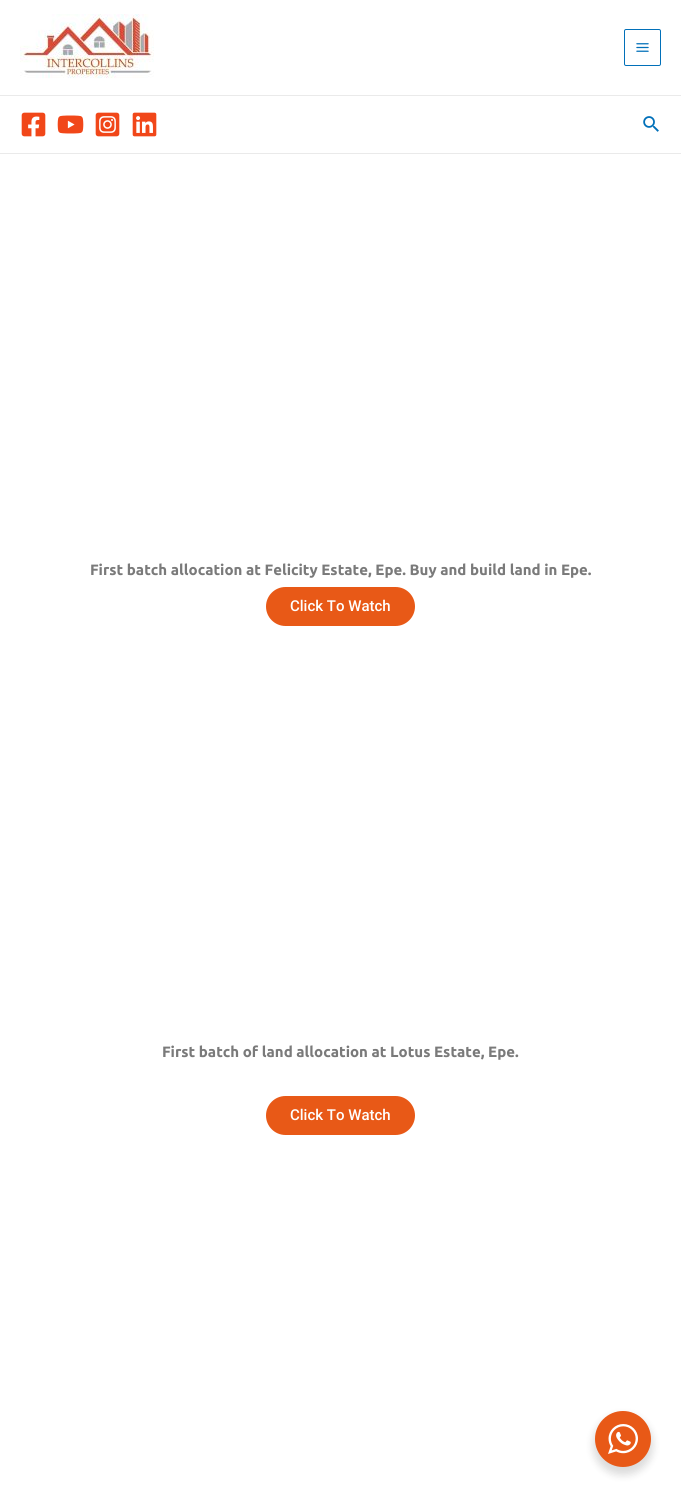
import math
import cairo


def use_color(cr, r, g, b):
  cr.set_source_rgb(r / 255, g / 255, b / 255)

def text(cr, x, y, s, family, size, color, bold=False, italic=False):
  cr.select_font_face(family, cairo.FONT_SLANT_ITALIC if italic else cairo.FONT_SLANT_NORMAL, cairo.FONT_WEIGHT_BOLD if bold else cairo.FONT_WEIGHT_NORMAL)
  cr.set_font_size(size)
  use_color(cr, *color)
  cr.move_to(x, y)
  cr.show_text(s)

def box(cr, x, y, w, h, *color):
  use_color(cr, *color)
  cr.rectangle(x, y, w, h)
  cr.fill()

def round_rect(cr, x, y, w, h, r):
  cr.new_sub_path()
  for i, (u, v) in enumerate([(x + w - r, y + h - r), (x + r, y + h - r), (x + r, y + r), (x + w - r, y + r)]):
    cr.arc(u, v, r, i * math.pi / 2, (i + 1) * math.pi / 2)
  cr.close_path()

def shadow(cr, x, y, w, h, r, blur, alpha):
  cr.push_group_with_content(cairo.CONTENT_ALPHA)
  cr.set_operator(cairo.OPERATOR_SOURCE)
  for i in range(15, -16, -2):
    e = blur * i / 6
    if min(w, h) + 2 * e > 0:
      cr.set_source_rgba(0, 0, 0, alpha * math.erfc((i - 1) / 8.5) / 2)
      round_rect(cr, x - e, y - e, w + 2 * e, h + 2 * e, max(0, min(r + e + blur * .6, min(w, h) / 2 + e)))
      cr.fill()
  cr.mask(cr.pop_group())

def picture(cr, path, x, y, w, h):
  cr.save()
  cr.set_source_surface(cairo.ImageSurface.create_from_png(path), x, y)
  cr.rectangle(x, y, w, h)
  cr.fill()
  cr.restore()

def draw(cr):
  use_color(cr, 255, 255, 255)
  cr.paint()
  box(cr, 0, 95, 681, 1, 234, 234, 234)
  picture(cr, "img_01.png", 20, 14, 134, 65)
  round_rect(cr, 624.5, 29.5, 36, 36, 1.5)
  use_color(cr, 1, 112, 185)
  cr.set_line_width(1)
  cr.stroke()
  picture(cr, "img_02.png", 636, 43, 13, 9)
  box(cr, 0, 153, 681, 1, 234, 234, 234)
  picture(cr, "img_03.png", 21, 112, 25, 25)
  picture(cr, "img_04.png", 57, 115, 27, 19)
  picture(cr, "img_05.png", 95, 112, 25, 25)
  picture(cr, "img_06.png", 132, 112, 25, 25)
  picture(cr, "img_07.png", 643, 116, 16, 16)
  use_color(cr, 232, 89, 23)
  round_rect(cr, 266, 587, 149, 39, 19.5)
  cr.fill()
  round_rect(cr, 266, 1096, 149, 39, 19.5)
  cr.fill()
  use_color(cr, 0, 0, 0)
  shadow(cr, 593, 1415, 60, 60, 30, 4, 0.14)
  use_color(cr, 232, 89, 23)
  cr.arc(623, 1439, 28, 0, 2 * math.pi)
  cr.fill()
  picture(cr, "img_08.png", 608, 1424, 30, 30)
  text(cr, 90, 575, "First batch allocation at Felicity Estate, Epe. Buy and build land in Epe.", "Ubuntu", 15, (122, 122, 122), bold=True)
  text(cr, 290, 611, "Click To Watch", "Roboto Medium", 15, (255, 255, 255))
  text(cr, 162, 1057, "First batch of land allocation at Lotus Estate, Epe.", "Ubuntu", 15, (122, 122, 122), bold=True)
  text(cr, 290, 1120, "Click To Watch", "Roboto Medium", 15, (255, 255, 255))


surface = cairo.ImageSurface(cairo.FORMAT_RGB24, 681, 1489)
cr = cairo.Context(surface)
options = cairo.FontOptions()
options.set_hint_metrics(cairo.HINT_METRICS_OFF)
options.set_hint_style(cairo.HINT_STYLE_NONE)
cr.set_font_options(options)
cr.set_miter_limit(4)
draw(cr)
surface.write_to_png("out.png")
